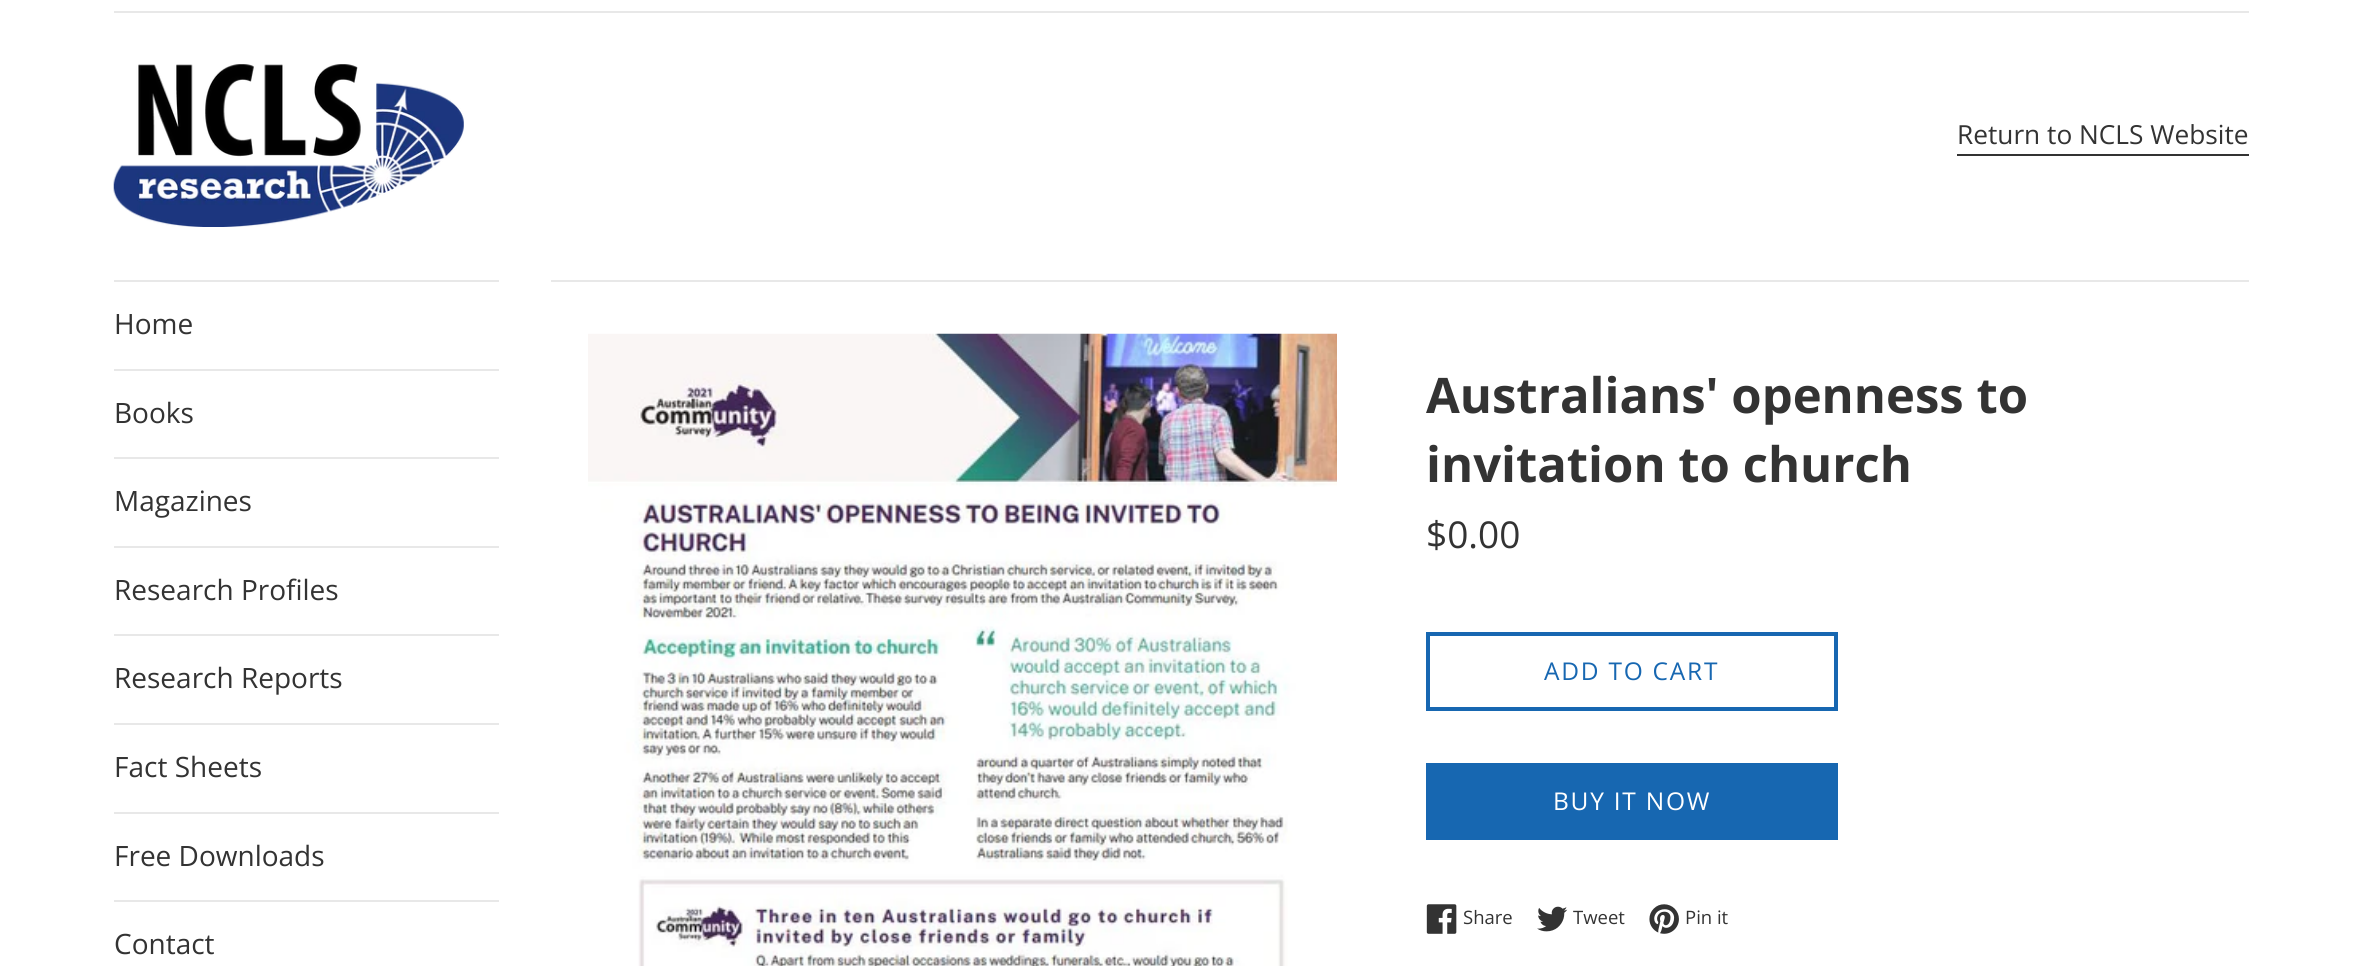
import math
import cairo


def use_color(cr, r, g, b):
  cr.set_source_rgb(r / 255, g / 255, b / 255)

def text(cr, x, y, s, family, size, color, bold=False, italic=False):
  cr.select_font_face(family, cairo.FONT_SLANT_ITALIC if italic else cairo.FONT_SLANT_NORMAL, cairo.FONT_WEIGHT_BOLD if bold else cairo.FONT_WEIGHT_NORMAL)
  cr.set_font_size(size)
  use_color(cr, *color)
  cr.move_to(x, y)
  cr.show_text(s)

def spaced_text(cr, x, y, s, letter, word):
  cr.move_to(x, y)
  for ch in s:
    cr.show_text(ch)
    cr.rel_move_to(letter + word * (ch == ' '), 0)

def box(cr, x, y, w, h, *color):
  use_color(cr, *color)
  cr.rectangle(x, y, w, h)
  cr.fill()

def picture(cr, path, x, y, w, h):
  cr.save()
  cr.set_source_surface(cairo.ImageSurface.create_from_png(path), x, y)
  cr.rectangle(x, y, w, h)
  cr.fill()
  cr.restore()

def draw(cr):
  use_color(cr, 255, 255, 255)
  cr.paint()
  box(cr, 114, 11, 2135, 2, 232, 232, 232)
  picture(cr, "img_01.png", 113, 64, 351, 163)
  box(cr, 1957, 154, 292, 2, 51, 51, 51)
  box(cr, 114, 280, 385, 2, 232, 232, 232)
  box(cr, 114, 369, 385, 2, 232, 232, 232)
  box(cr, 114, 457, 385, 2, 232, 232, 232)
  box(cr, 114, 546, 385, 2, 232, 232, 232)
  box(cr, 114, 634, 385, 2, 232, 232, 232)
  box(cr, 114, 723, 385, 2, 232, 232, 232)
  box(cr, 114, 812, 385, 2, 232, 232, 232)
  box(cr, 114, 900, 385, 2, 232, 232, 232)
  box(cr, 551, 280, 1698, 2, 232, 232, 232)
  picture(cr, "img_02.png", 588, 333, 749, 633)
  cr.rectangle(1428, 634, 408, 75)
  use_color(cr, 23, 103, 177)
  cr.set_line_width(4)
  cr.stroke()
  box(cr, 1426, 763, 412, 77, 23, 103, 177)
  picture(cr, "img_03.png", 1426, 904, 31, 30)
  picture(cr, "img_04.png", 1537, 906, 31, 26)
  picture(cr, "img_05.png", 1649, 904, 30, 30)
  text(cr, 1957, 144, "Return to NCLS Website", "Open Sans", 26.25, (51, 51, 51))
  text(cr, 114, 334, "Home", "Open Sans", 28, (51, 51, 51))
  text(cr, 114, 423, "Books", "Open Sans", 28, (51, 51, 51))
  text(cr, 114, 511, "Magazines", "Open Sans", 28, (51, 51, 51))
  text(cr, 114, 600, "Research Profiles", "Open Sans", 28, (51, 51, 51))
  text(cr, 114, 688, "Research Reports", "Open Sans", 28, (51, 51, 51))
  text(cr, 114, 777, "Fact Sheets", "Open Sans", 28, (51, 51, 51))
  text(cr, 114, 866, "Free Downloads", "Open Sans", 28, (51, 51, 51))
  text(cr, 114, 954, "Contact", "Open Sans", 28, (51, 51, 51))
  text(cr, 1426, 413, "Australians' openness to", "Open Sans", 49, (51, 51, 51), bold=True)
  text(cr, 1426, 482, "invitation to church", "Open Sans", 49, (51, 51, 51), bold=True)
  text(cr, 1426, 548, "$0.00", "Open Sans", 37, (51, 51, 51))
  cr.set_font_size(24.5)
  use_color(cr, 23, 103, 177)
  spaced_text(cr, 1544, 680, "ADD TO CART", 1.75, 0)
  use_color(cr, 255, 255, 255)
  spaced_text(cr, 1553, 810, "BUY IT NOW", 1.75, 0)
  text(cr, 1463, 924, "Share", "Open Sans", 18.5, (51, 51, 51))
  text(cr, 1573, 924, "Tweet", "Open Sans", 18.5, (51, 51, 51))
  text(cr, 1685, 924, "Pin it", "Open Sans", 18.5, (51, 51, 51))


surface = cairo.ImageSurface(cairo.FORMAT_RGB24, 2362, 966)
cr = cairo.Context(surface)
options = cairo.FontOptions()
options.set_hint_metrics(cairo.HINT_METRICS_OFF)
options.set_hint_style(cairo.HINT_STYLE_NONE)
cr.set_font_options(options)
cr.set_miter_limit(4)
draw(cr)
surface.write_to_png("out.png")
